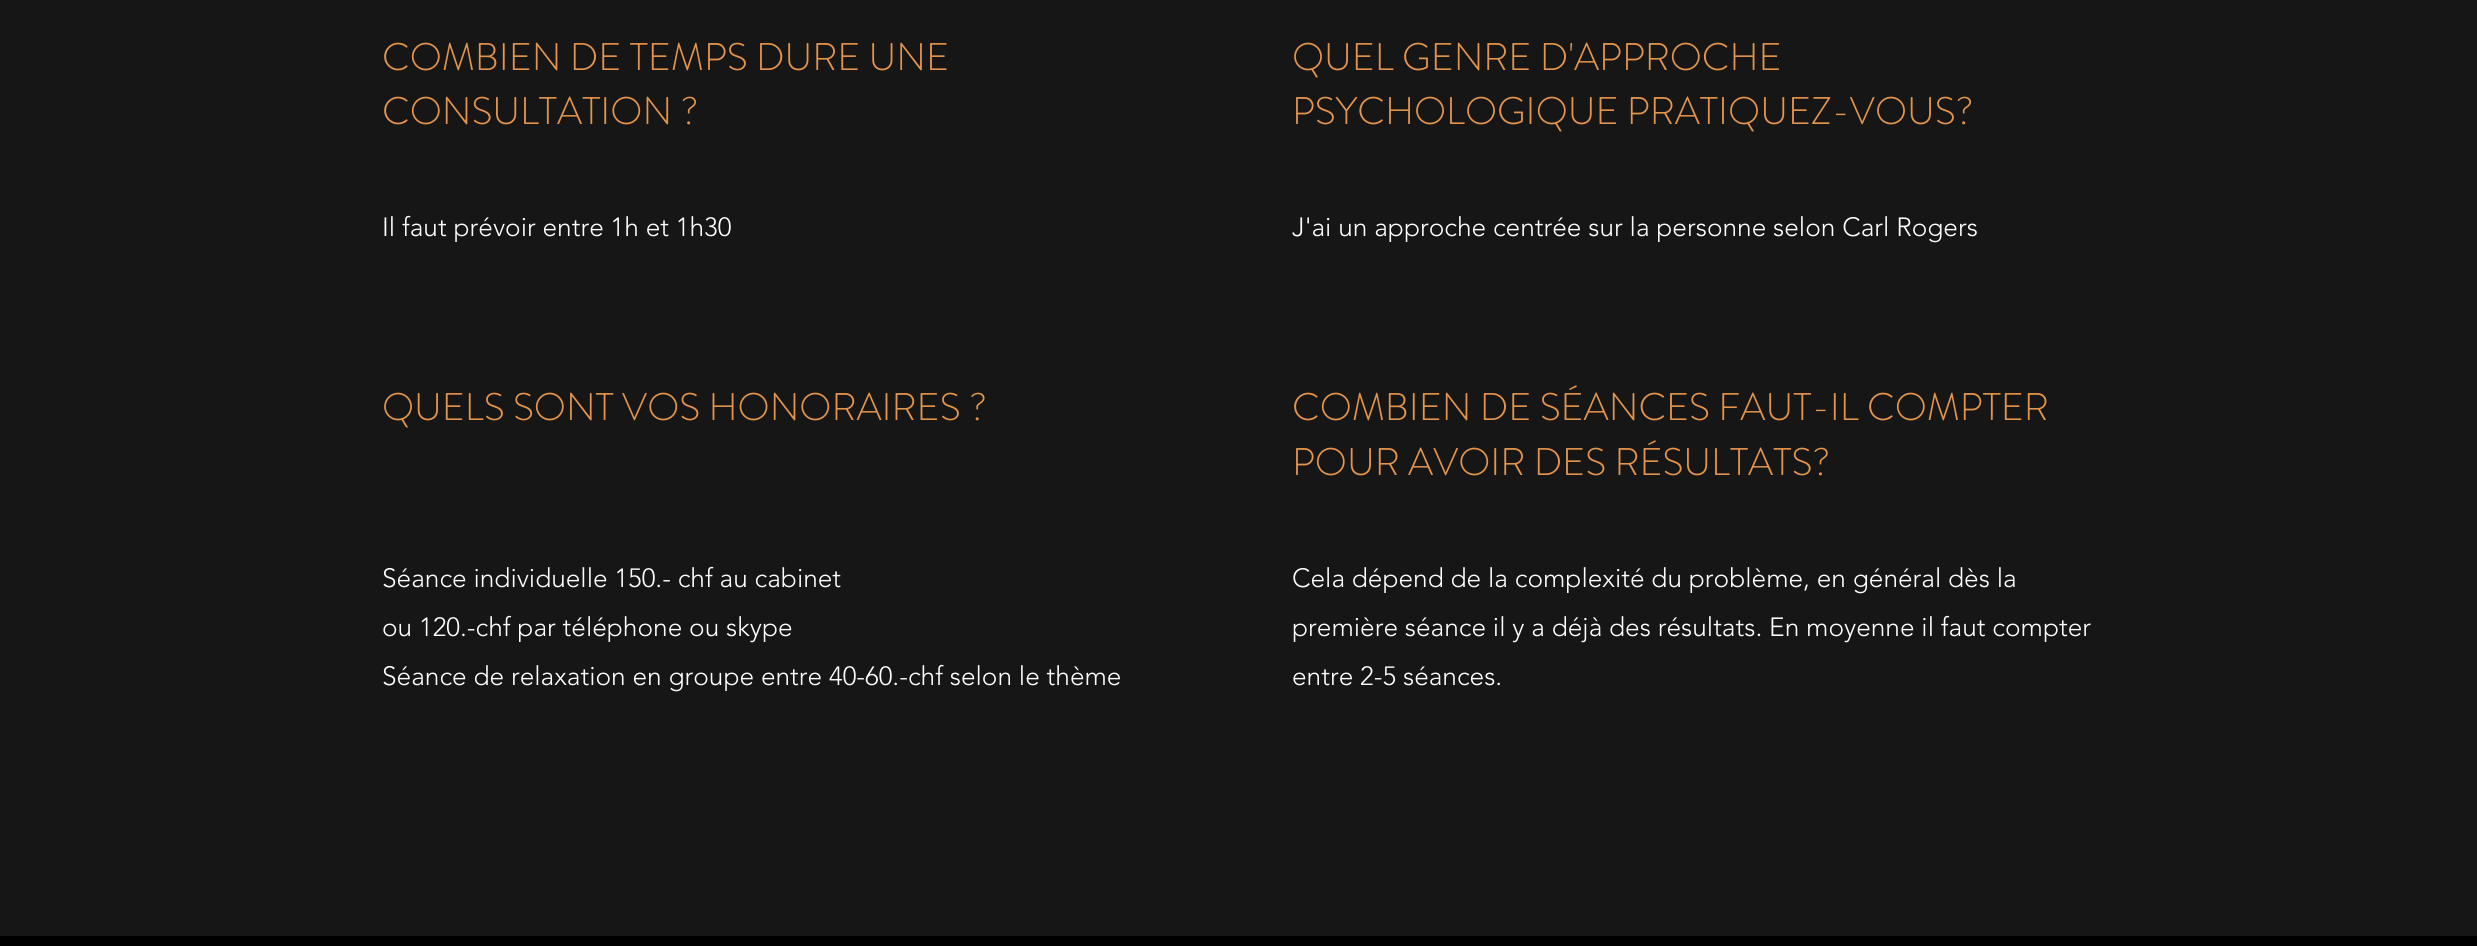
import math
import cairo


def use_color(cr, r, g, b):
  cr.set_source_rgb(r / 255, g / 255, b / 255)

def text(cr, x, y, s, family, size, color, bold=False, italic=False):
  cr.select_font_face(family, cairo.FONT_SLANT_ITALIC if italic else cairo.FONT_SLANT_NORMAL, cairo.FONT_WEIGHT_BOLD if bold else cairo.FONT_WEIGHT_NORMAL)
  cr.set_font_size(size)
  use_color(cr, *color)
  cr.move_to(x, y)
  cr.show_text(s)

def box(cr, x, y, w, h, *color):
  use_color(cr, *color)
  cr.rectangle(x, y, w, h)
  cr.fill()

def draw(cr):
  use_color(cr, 22, 22, 22)
  cr.paint()
  box(cr, 0, 936, 2477, 10, 0, 0, 0)
  text(cr, 382, 70, "COMBIEN DE TEMPS DURE UNE", "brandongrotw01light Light", 38.5, (228, 148, 75))
  text(cr, 382, 124, "CONSULTATION ?", "brandongrotw01light Light", 38.5, (228, 148, 75))
  text(cr, 382, 236, "Il faut prévoir entre 1h et 1h30", "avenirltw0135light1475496 Light", 26.25, (255, 255, 255))
  text(cr, 1292, 70, "QUEL GENRE D'APPROCHE", "brandongrotw01light Light", 38.5, (228, 148, 75))
  text(cr, 1292, 124, "PSYCHOLOGIQUE PRATIQUEZ-VOUS?", "brandongrotw01light Light", 38.5, (228, 148, 75))
  text(cr, 1292, 236, "J'ai un approche centrée sur la personne selon Carl Rogers", "avenirltw0135light1475496 Light", 26.25, (255, 255, 255))
  text(cr, 382, 420, "QUELS SONT VOS HONORAIRES ?", "brandongrotw01light Light", 38.5, (228, 148, 75))
  text(cr, 382, 587, "Séance individuelle 150.- chf au cabinet", "avenirltw0135light1475496 Light", 26.25, (255, 255, 255))
  text(cr, 382, 636, "ou 120.-chf par téléphone ou skype", "avenirltw0135light1475496 Light", 26.25, (255, 255, 255))
  text(cr, 382, 685, "Séance de relaxation en groupe entre 40-60.-chf selon le thème", "avenirltw0135light1475496 Light", 26.25, (255, 255, 255))
  text(cr, 1292, 420, "COMBIEN DE SÉANCES FAUT-IL COMPTER", "brandongrotw01light Light", 38.5, (228, 148, 75))
  text(cr, 1292, 475, "POUR AVOIR DES RÉSULTATS?", "brandongrotw01light Light", 38.5, (228, 148, 75))
  text(cr, 1292, 587, "Cela dépend de la complexité du problème, en général dès la", "avenirltw0135light1475496 Light", 26.25, (255, 255, 255))
  text(cr, 1292, 636, "première séance il y a déjà des résultats. En moyenne il faut compter", "avenirltw0135light1475496 Light", 26.25, (255, 255, 255))
  text(cr, 1292, 685, "entre 2-5 séances.", "avenirltw0135light1475496 Light", 26.25, (255, 255, 255))


surface = cairo.ImageSurface(cairo.FORMAT_RGB24, 2477, 946)
cr = cairo.Context(surface)
options = cairo.FontOptions()
options.set_hint_metrics(cairo.HINT_METRICS_OFF)
options.set_hint_style(cairo.HINT_STYLE_NONE)
cr.set_font_options(options)
cr.set_miter_limit(4)
draw(cr)
surface.write_to_png("out.png")
